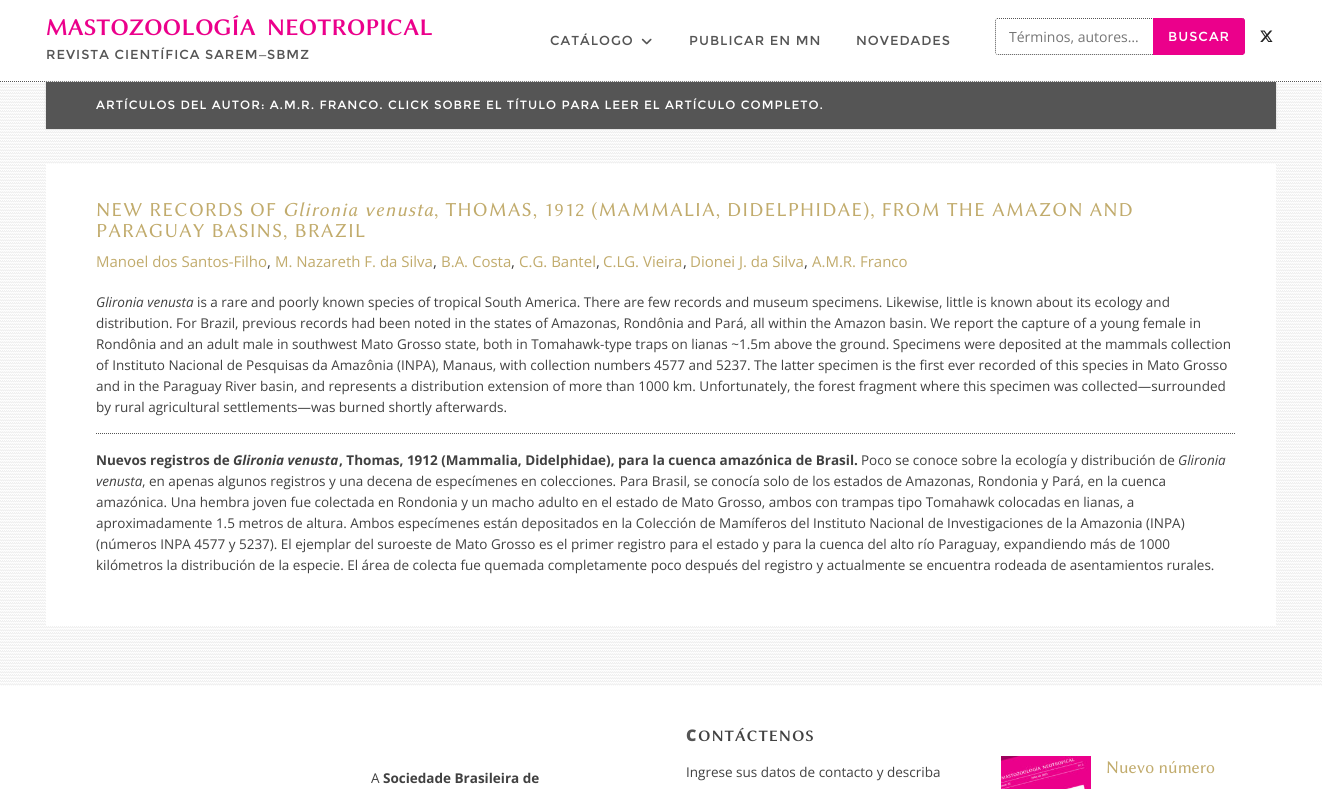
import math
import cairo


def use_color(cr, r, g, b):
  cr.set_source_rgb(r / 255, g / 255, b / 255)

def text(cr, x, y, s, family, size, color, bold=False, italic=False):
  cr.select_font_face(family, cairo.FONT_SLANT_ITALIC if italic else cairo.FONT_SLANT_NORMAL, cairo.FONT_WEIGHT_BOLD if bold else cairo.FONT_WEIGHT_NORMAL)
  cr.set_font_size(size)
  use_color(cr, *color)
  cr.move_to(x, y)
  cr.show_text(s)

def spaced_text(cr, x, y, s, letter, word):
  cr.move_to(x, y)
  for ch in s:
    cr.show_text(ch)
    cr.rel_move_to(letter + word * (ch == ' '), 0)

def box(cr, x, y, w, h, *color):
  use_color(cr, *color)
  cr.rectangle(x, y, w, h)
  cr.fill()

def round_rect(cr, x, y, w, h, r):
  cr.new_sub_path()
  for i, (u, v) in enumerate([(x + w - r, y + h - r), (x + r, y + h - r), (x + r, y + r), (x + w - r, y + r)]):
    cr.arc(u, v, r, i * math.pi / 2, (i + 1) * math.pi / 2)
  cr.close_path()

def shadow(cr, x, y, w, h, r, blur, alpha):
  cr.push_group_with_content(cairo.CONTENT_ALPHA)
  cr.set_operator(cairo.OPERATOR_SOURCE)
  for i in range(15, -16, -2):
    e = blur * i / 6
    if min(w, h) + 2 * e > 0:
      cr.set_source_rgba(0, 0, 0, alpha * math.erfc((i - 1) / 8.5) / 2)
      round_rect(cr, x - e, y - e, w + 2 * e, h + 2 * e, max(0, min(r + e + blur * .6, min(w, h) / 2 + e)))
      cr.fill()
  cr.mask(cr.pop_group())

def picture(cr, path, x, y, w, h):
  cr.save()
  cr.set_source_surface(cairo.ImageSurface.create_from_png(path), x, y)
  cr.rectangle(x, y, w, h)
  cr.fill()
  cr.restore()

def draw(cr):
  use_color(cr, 255, 255, 255)
  cr.paint()
  cr.new_path()
  cr.move_to(0, 81.5)
  cr.line_to(1322, 81.5)
  use_color(cr, 85, 85, 85)
  cr.set_line_width(1)
  cr.set_dash([1, 1])
  cr.stroke()
  picture(cr, "img_01.png", 641, 38, 11, 7)
  cr.save()
  round_rect(cr, 995, 18, 250, 37, 3)
  cr.clip()
  cr.new_path()
  cr.move_to(997, 18.5)
  cr.line_to(1243, 18.5)
  cr.curve_to(1244, 18.5, 1244.5, 19, 1244.5, 20)
  cr.line_to(1244.5, 53)
  cr.curve_to(1244.5, 54, 1244, 54.5, 1243, 54.5)
  cr.line_to(997, 54.5)
  cr.curve_to(996, 54.5, 995.5, 54, 995.5, 53)
  cr.line_to(995.5, 20)
  cr.curve_to(995.5, 19, 996, 18.5, 997, 18.5)
  cr.close_path()
  cr.stroke()
  cr.restore()
  use_color(cr, 235, 0, 139)
  cr.new_path()
  cr.move_to(1153, 18)
  cr.line_to(1242, 18)
  cr.curve_to(1243.5, 18, 1245, 19.5, 1245, 21)
  cr.line_to(1245, 52)
  cr.curve_to(1245, 53.5, 1243.5, 55, 1242, 55)
  cr.line_to(1153, 55)
  cr.close_path()
  cr.fill()
  picture(cr, "img_02.png", 1260, 30, 13, 12)
  picture(cr, "img_03.png", 0, 82, 1322, 604)
  use_color(cr, 207, 207, 207)
  shadow(cr, 46, 82, 1230, 47, 0, 1, 1)
  box(cr, 46, 82, 1230, 47, 85, 85, 85)
  box(cr, 46, 164, 1230, 462, 255, 255, 255)
  cr.new_path()
  cr.move_to(96, 433.5)
  cr.line_to(1236, 433.5)
  use_color(cr, 85, 85, 85)
  cr.stroke()
  picture(cr, "img_04.png", 1001, 756, 90, 33)
  cr.select_font_face("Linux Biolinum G", cairo.FONT_SLANT_NORMAL, cairo.FONT_WEIGHT_BOLD)
  cr.set_font_size(24)
  use_color(cr, 235, 0, 139)
  spaced_text(cr, 46, 35, "MASTOZOOLOGÍA NEOTROPICAL", 0, 5)
  cr.select_font_face("Montserrat")
  cr.set_font_size(13)
  use_color(cr, 85, 85, 85)
  spaced_text(cr, 46, 59, "REVISTA CIENTÍFICA SAREM", 1, 0)
  cr.select_font_face("Liberation Sans")
  spaced_text(cr, 259, 59, "–", 1, 0)
  cr.select_font_face("Montserrat")
  spaced_text(cr, 267, 59, "SBMZ", 1, 0)
  spaced_text(cr, 550, 45, "CATÁLOGO", 1, 0)
  spaced_text(cr, 689, 45, "PUBLICAR EN MN", 1, 0)
  spaced_text(cr, 856, 45, "NOVEDADES", 1, 0)
  text(cr, 1009, 42, "Términos, autores…", "Open Sans", 14, (117, 117, 117))
  cr.select_font_face("Montserrat")
  cr.set_font_size(13)
  use_color(cr, 255, 255, 255)
  spaced_text(cr, 1168, 41, "BUSCAR", 1, 0)
  cr.set_font_size(12)
  spaced_text(cr, 96, 109, "ARTÍCULOS DEL AUTOR: A.M.R. FRANCO. CLICK SOBRE EL TÍTULO PARA LEER EL ARTÍCULO COMPLETO.", 1, 0)
  cr.select_font_face("Linux Biolinum G")
  cr.set_font_size(20)
  use_color(cr, 193, 171, 108)
  spaced_text(cr, 96, 216, "NEW RECORDS OF", 1, 0)
  cr.select_font_face("Linux Biolinum G", cairo.FONT_SLANT_ITALIC)
  spaced_text(cr, 283, 216, "Glironia venusta", 1, 0)
  cr.select_font_face("Linux Biolinum G")
  spaced_text(cr, 434, 216, ", THOMAS, 1912 (MAMMALIA, DIDELPHIDAE), FROM THE AMAZON AND", 1, 0)
  spaced_text(cr, 96, 237, "PARAGUAY BASINS, BRAZIL", 1, 0)
  text(cr, 96, 267, "Manoel dos Santos-Filho", "Open Sans", 15, (193, 171, 108))
  text(cr, 267, 267, ",", "Open Sans", 15, (65, 65, 65))
  text(cr, 275, 267, "M. Nazareth F. da Silva", "Open Sans", 15, (193, 171, 108))
  text(cr, 433, 267, ",", "Open Sans", 15, (65, 65, 65))
  text(cr, 441, 267, "B.A. Costa", "Open Sans", 15, (193, 171, 108))
  text(cr, 511, 267, ",", "Open Sans", 15, (65, 65, 65))
  text(cr, 519, 267, "C.G. Bantel", "Open Sans", 15, (193, 171, 108))
  text(cr, 596, 267, ",", "Open Sans", 15, (65, 65, 65))
  text(cr, 603, 267, "C.LG. Vieira", "Open Sans", 15, (193, 171, 108))
  text(cr, 683, 267, ",", "Open Sans", 15, (65, 65, 65))
  text(cr, 690, 267, "Dionei J. da Silva", "Open Sans", 15, (193, 171, 108))
  text(cr, 804, 267, ",", "Open Sans", 15, (65, 65, 65))
  text(cr, 812, 267, "A.M.R. Franco", "Open Sans", 15, (193, 171, 108))
  text(cr, 96, 307, "Glironia venusta", "Open Sans", 13.5, (65, 65, 65), italic=True)
  text(cr, 197, 307, "is a rare and poorly known species of tropical South America. There are few records and museum specimens. Likewise, little is known about its ecology and", "Open Sans", 13.5, (65, 65, 65))
  text(cr, 96, 328, "distribution. For Brazil, previous records had been noted in the states of Amazonas, Rondônia and Pará, all within the Amazon basin. We report the capture of a young female in", "Open Sans", 13.5, (65, 65, 65))
  text(cr, 96, 349, "Rondônia and an adult male in southwest Mato Grosso state, both in Tomahawk-type traps on lianas ~1.5m above the ground. Specimens were deposited at the mammals collection", "Open Sans", 13.5, (65, 65, 65))
  text(cr, 96, 370, "of Instituto Nacional de Pesquisas da Amazônia (INPA), Manaus, with collection numbers 4577 and 5237. The latter specimen is the first ever recorded of this species in Mato Grosso", "Open Sans", 13.5, (65, 65, 65))
  text(cr, 96, 391, "and in the Paraguay River basin, and represents a distribution extension of more than 1000 km. Unfortunately, the forest fragment where this specimen was collected—surrounded", "Open Sans", 13.5, (65, 65, 65))
  text(cr, 96, 412, "by rural agricultural settlements—was burned shortly afterwards.", "Open Sans", 13.5, (65, 65, 65))
  text(cr, 96, 465, "Nuevos registros de", "Open Sans", 13.5, (65, 65, 65), bold=True)
  text(cr, 233, 465, "Glironia venusta", "Open Sans", 13.5, (65, 65, 65), bold=True, italic=True)
  text(cr, 339, 465, ", Thomas, 1912 (Mammalia, Didelphidae), para la cuenca amazónica de Brasil.", "Open Sans", 13.5, (65, 65, 65), bold=True)
  text(cr, 861, 465, "Poco se conoce sobre la ecología y distribución de", "Open Sans", 13.5, (65, 65, 65))
  text(cr, 1178, 465, "Glironia", "Open Sans", 13.5, (65, 65, 65), italic=True)
  text(cr, 96, 486, "venusta", "Open Sans", 13.5, (65, 65, 65), italic=True)
  text(cr, 142, 486, ", en apenas algunos registros y una decena de especímenes en colecciones. Para Brasil, se conocía solo de los estados de Amazonas, Rondonia y Pará, en la cuenca", "Open Sans", 13.5, (65, 65, 65))
  text(cr, 96, 507, "amazónica. Una hembra joven fue colectada en Rondonia y un macho adulto en el estado de Mato Grosso, ambos con trampas tipo Tomahawk colocadas en lianas, a", "Open Sans", 13.5, (65, 65, 65))
  text(cr, 96, 528, "aproximadamente 1.5 metros de altura. Ambos especímenes están depositados en la Colección de Mamíferos del Instituto Nacional de Investigaciones de la Amazonia (INPA)", "Open Sans", 13.5, (65, 65, 65))
  text(cr, 96, 549, "(números INPA 4577 y 5237). El ejemplar del suroeste de Mato Grosso es el primer registro para el estado y para la cuenca del alto río Paraguay, expandiendo más de 1000", "Open Sans", 13.5, (65, 65, 65))
  text(cr, 96, 570, "kilómetros la distribución de la especie. El área de colecta fue quemada completamente poco después del registro y actualmente se encuentra rodeada de asentamientos rurales.", "Open Sans", 13.5, (65, 65, 65))
  cr.select_font_face("Noto Sans Black")
  cr.set_font_size(16)
  use_color(cr, 85, 85, 85)
  spaced_text(cr, 686, 741, "C", 1, 0)
  cr.select_font_face("Linux Biolinum G", cairo.FONT_SLANT_NORMAL, cairo.FONT_WEIGHT_BOLD)
  use_color(cr, 65, 65, 65)
  spaced_text(cr, 698, 741, "ONTÁCTENOS", 1, 0)
  text(cr, 686, 777, "Ingrese sus datos de contacto y describa", "Open Sans", 13.5, (65, 65, 65))
  text(cr, 1106, 773, "Nuevo número", "Linux Biolinum G", 18, (193, 171, 108))
  text(cr, 371, 783, "A", "Open Sans", 13.5, (65, 65, 65))
  text(cr, 383, 783, "Sociedade Brasileira de", "Open Sans", 13.5, (65, 65, 65), bold=True)


surface = cairo.ImageSurface(cairo.FORMAT_RGB24, 1322, 789)
cr = cairo.Context(surface)
options = cairo.FontOptions()
options.set_hint_metrics(cairo.HINT_METRICS_OFF)
options.set_hint_style(cairo.HINT_STYLE_NONE)
cr.set_font_options(options)
cr.set_miter_limit(4)
draw(cr)
surface.write_to_png("out.png")
